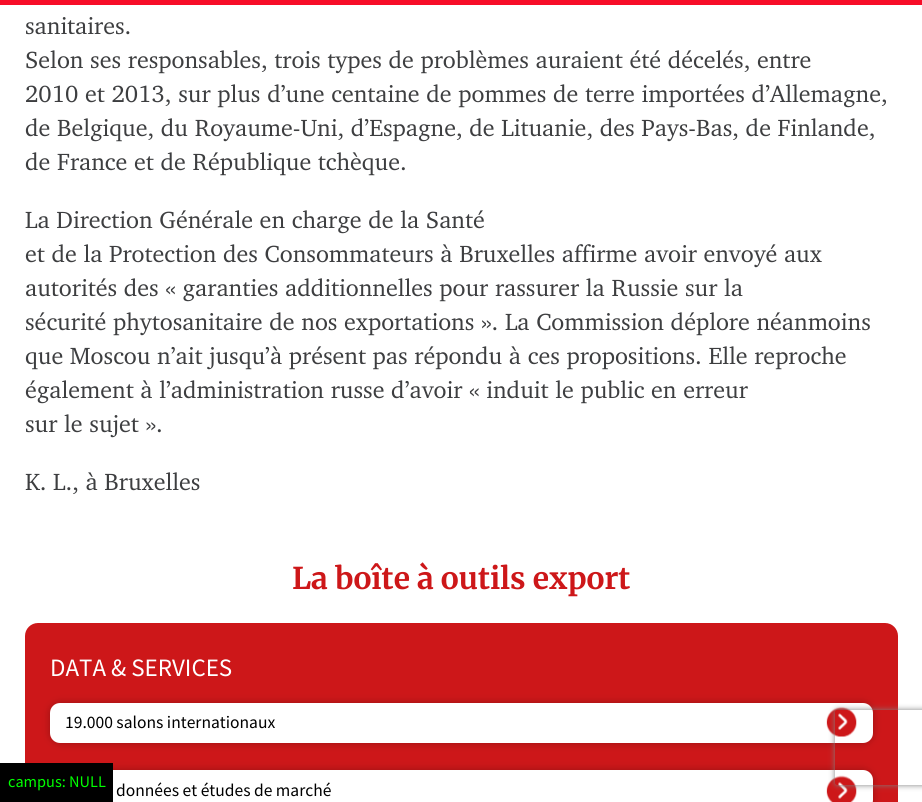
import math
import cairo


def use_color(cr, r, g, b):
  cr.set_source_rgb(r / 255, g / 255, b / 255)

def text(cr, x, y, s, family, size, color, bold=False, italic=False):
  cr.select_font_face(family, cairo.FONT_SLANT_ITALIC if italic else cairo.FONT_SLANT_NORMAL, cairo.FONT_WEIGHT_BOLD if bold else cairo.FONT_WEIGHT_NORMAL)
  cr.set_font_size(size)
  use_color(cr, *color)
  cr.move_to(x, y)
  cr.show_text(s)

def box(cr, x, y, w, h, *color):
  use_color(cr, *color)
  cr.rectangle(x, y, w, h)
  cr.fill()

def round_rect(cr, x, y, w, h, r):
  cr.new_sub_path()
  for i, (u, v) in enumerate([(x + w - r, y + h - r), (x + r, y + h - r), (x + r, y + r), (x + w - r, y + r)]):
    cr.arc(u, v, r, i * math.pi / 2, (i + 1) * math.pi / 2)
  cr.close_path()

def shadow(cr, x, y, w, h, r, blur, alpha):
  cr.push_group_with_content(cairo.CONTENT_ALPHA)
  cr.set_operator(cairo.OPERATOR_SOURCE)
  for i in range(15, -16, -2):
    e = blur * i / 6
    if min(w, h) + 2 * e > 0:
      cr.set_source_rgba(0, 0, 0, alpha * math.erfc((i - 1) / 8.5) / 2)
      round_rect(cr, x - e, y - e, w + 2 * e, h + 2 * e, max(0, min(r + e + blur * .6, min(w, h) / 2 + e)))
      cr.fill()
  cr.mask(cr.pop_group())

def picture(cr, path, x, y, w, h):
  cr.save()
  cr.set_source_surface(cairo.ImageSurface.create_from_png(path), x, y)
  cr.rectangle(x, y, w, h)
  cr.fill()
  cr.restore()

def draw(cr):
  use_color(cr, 255, 255, 255)
  cr.paint()
  box(cr, 0, 0, 922, 5, 247, 13, 40)
  use_color(cr, 205, 23, 25)
  round_rect(cr, 25, 623, 873, 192, 13)
  cr.fill()
  use_color(cr, 0, 0, 0)
  shadow(cr, 50, 703, 823, 40, 10, 4, 0.25)
  use_color(cr, 255, 255, 255)
  round_rect(cr, 50, 703, 823, 40, 10)
  cr.fill()
  picture(cr, "img_01.png", 826, 706, 31, 31)
  use_color(cr, 0, 0, 0)
  shadow(cr, 50, 770, 823, 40, 10, 4, 0.25)
  use_color(cr, 255, 255, 255)
  round_rect(cr, 50, 770, 823, 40, 10)
  cr.fill()
  picture(cr, "img_02.png", 826, 775, 31, 27)
  box(cr, 0, 763, 113, 39, 0, 0, 0)
  cr.save()
  cr.set_fill_rule(cairo.FILL_RULE_EVEN_ODD)
  cr.new_path()
  cr.move_to(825, 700)
  cr.line_to(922, 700)
  cr.line_to(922, 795)
  cr.line_to(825, 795)
  cr.close_path()
  cr.move_to(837.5, 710)
  cr.line_to(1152.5, 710)
  cr.curve_to(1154, 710, 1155, 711, 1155, 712.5)
  cr.line_to(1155, 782.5)
  cr.curve_to(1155, 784, 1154, 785, 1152.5, 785)
  cr.line_to(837.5, 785)
  cr.curve_to(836, 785, 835, 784, 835, 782.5)
  cr.line_to(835, 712.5)
  cr.curve_to(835, 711, 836, 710, 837.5, 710)
  cr.close_path()
  cr.clip()
  use_color(cr, 128, 128, 128)
  shadow(cr, 835, 710, 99, 75, 2.5, 3, 1)
  cr.restore()
  text(cr, 25, 34, "sanitaires.", "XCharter", 24, (61, 62, 64))
  text(cr, 25, 68, "Selon ses responsables, trois types de problèmes auraient été décelés, entre", "XCharter", 24, (61, 62, 64))
  text(cr, 25, 102, "2010 et 2013, sur plus d’une centaine de pommes de terre importées d’Allemagne,", "XCharter", 24, (61, 62, 64))
  text(cr, 25, 136, "de Belgique, du Royaume-Uni, d’Espagne, de Lituanie, des Pays-Bas, de Finlande,", "XCharter", 24, (61, 62, 64))
  text(cr, 25, 170, "de France et de République tchèque.", "XCharter", 24, (61, 62, 64))
  text(cr, 25, 228, "La Direction Générale en charge de la Santé", "XCharter", 24, (61, 62, 64))
  text(cr, 25, 262, "et de la Protection des Consommateurs à Bruxelles affirme avoir envoyé aux", "XCharter", 24, (61, 62, 64))
  text(cr, 25, 296, "autorités des « garanties additionnelles pour rassurer la Russie sur la", "XCharter", 24, (61, 62, 64))
  text(cr, 25, 330, "sécurité phytosanitaire de nos exportations ». La Commission déplore néanmoins", "XCharter", 24, (61, 62, 64))
  text(cr, 25, 364, "que Moscou n’ait jusqu’à présent pas répondu à ces propositions. Elle reproche", "XCharter", 24, (61, 62, 64))
  text(cr, 25, 398, "également à l’administration russe d’avoir « induit le public en erreur", "XCharter", 24, (61, 62, 64))
  text(cr, 25, 432, "sur le sujet ».", "XCharter", 24, (61, 62, 64))
  text(cr, 25, 490, "K. L., à Bruxelles", "XCharter", 24, (61, 62, 64))
  text(cr, 292, 589, "La boîte à outils export", "Merriweather", 30, (205, 23, 25), bold=True)
  text(cr, 50, 676, "DATA & SERVICES", "Source Sans Pro", 25, (255, 255, 255))
  text(cr, 65, 728, "19.000 salons internationaux", "Source Sans Pro", 17.5, (0, 0, 0))
  text(cr, 116, 796, "données et études de marché", "Source Sans Pro", 17.5, (0, 0, 0))
  text(cr, 8, 787, "campus: NULL", "Source Sans Pro", 16.25, (0, 255, 0))


surface = cairo.ImageSurface(cairo.FORMAT_RGB24, 922, 802)
cr = cairo.Context(surface)
options = cairo.FontOptions()
options.set_hint_metrics(cairo.HINT_METRICS_OFF)
options.set_hint_style(cairo.HINT_STYLE_NONE)
cr.set_font_options(options)
cr.set_miter_limit(4)
draw(cr)
surface.write_to_png("out.png")
